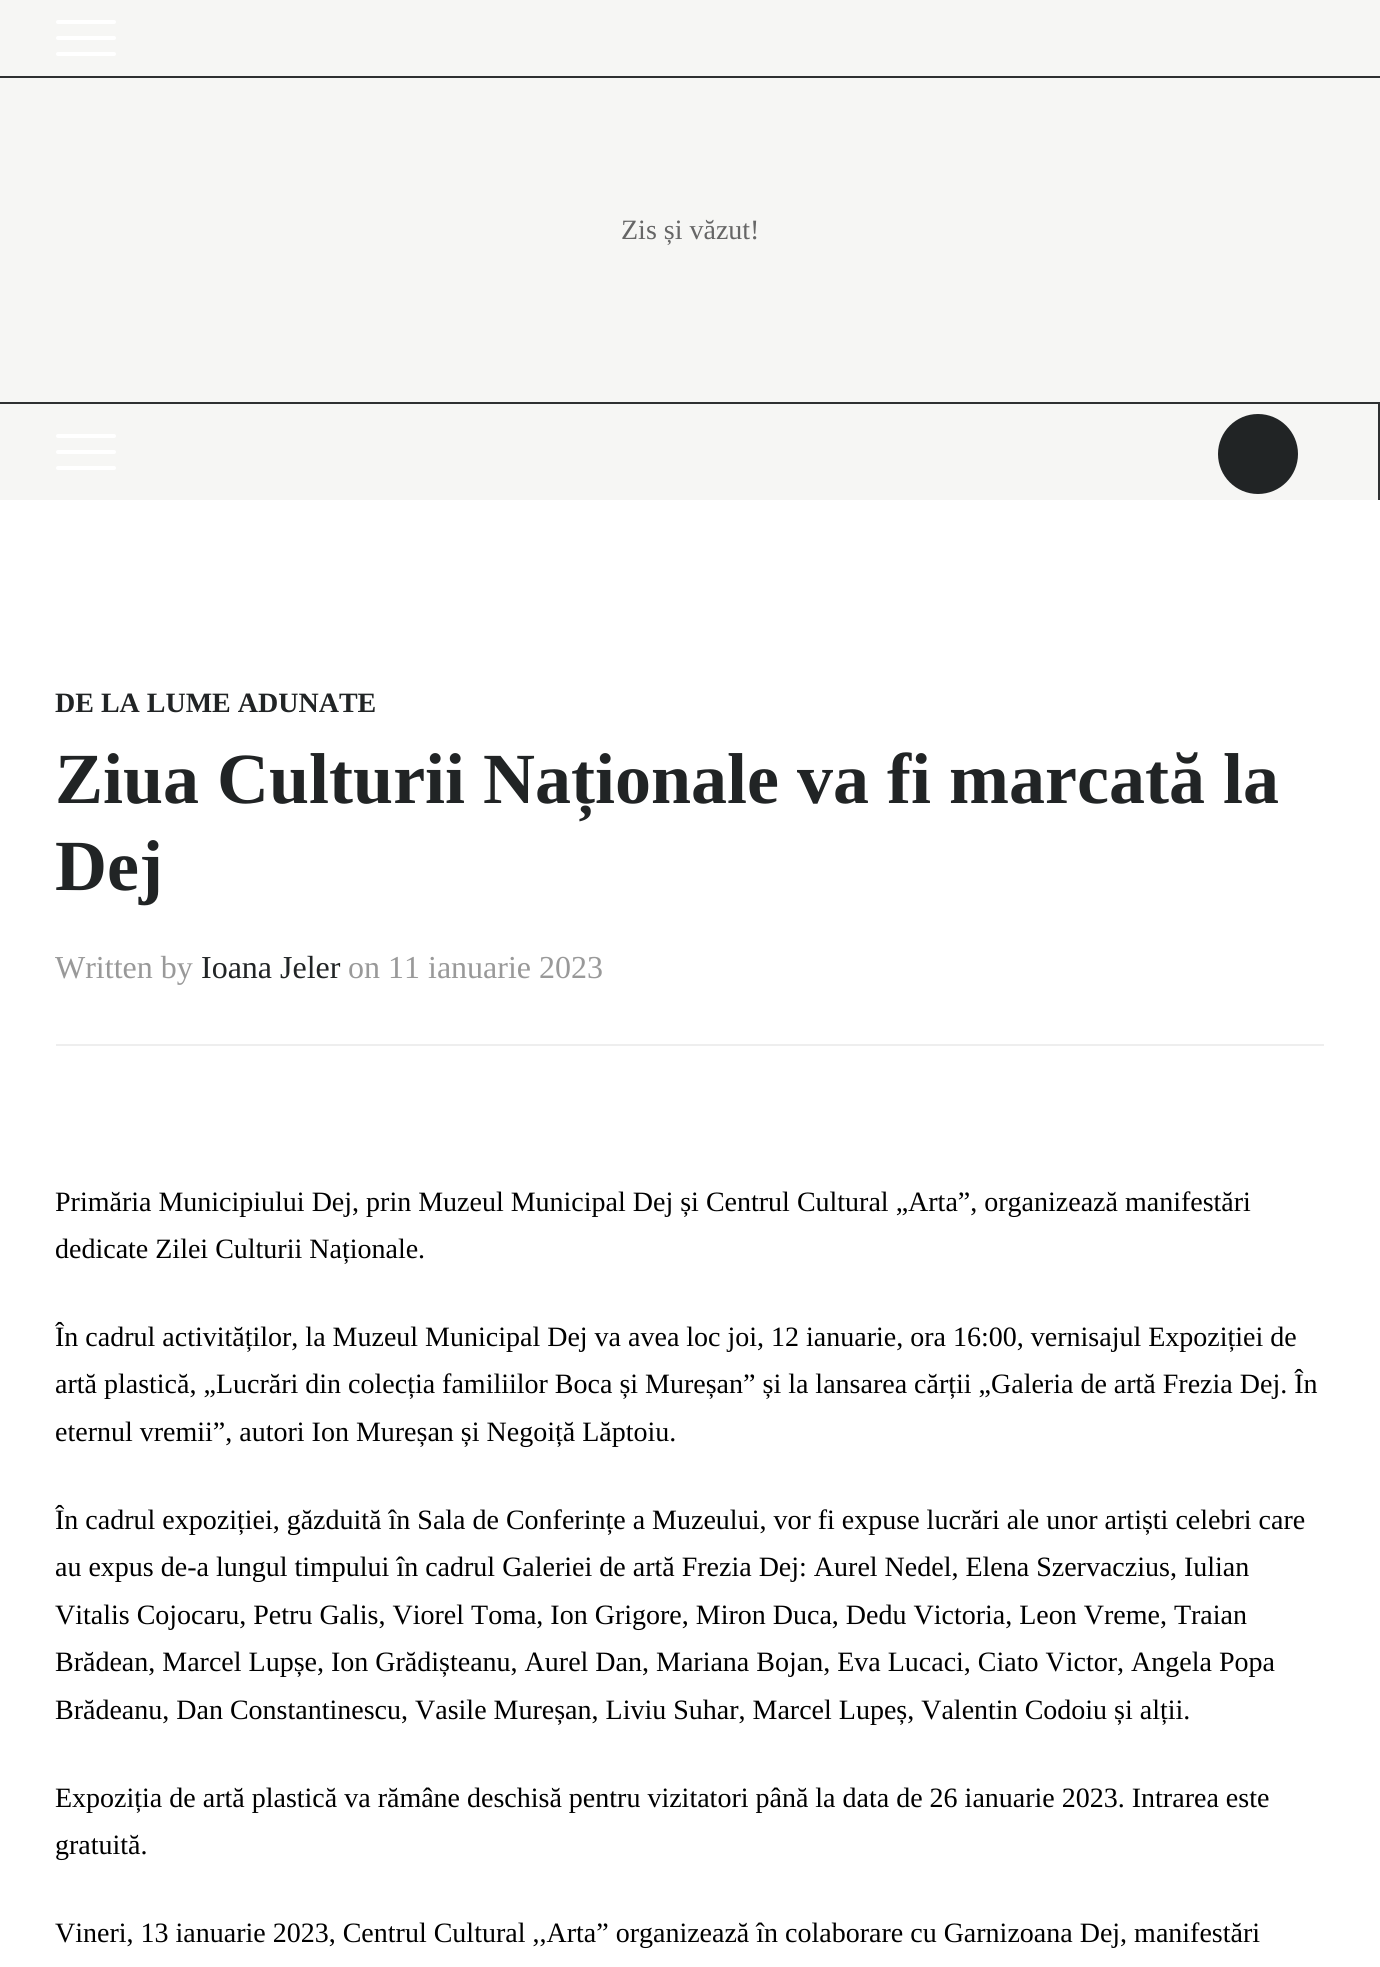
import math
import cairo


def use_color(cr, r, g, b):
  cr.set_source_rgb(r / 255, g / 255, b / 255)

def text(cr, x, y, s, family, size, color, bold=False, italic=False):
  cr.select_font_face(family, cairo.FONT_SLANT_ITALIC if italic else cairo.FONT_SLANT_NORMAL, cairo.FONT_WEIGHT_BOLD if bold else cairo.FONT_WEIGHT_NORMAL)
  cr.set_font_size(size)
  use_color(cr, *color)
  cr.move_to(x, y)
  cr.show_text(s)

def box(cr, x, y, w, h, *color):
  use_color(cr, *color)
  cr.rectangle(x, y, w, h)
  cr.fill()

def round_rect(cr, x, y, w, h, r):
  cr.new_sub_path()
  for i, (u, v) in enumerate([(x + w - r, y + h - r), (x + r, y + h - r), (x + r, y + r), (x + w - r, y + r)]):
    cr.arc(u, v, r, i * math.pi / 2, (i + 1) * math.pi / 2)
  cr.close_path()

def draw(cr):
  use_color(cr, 255, 255, 255)
  cr.paint()
  box(cr, 0, 0, 1380, 500, 246, 246, 244)
  box(cr, 0, 76, 1380, 2, 46, 48, 49)
  use_color(cr, 255, 255, 255)
  round_rect(cr, 56, 20, 60, 4, 2)
  cr.fill()
  round_rect(cr, 56, 36, 60, 4, 2)
  cr.fill()
  round_rect(cr, 56, 52, 60, 4, 2)
  cr.fill()
  box(cr, 0, 402, 1380, 2, 46, 48, 49)
  box(cr, 1378, 404, 2, 96, 46, 48, 49)
  use_color(cr, 255, 255, 255)
  round_rect(cr, 56, 434, 60, 4, 2)
  cr.fill()
  round_rect(cr, 56, 450, 60, 4, 2)
  cr.fill()
  round_rect(cr, 56, 466, 60, 4, 2)
  cr.fill()
  use_color(cr, 33, 36, 37)
  cr.arc(1258, 454, 40, 0, 2 * math.pi)
  cr.fill()
  box(cr, 56, 1044, 1268, 2, 238, 238, 238)
  text(cr, 621, 239, "Zis și văzut!", "Liberation Serif", 28, (102, 102, 102))
  text(cr, 55, 712, "DE LA LUME ADUNATE", "Liberation Serif", 28, (33, 36, 37), bold=True)
  text(cr, 55, 803, "Ziua Culturii Naționale va fi marcată la", "Liberation Serif", 72, (33, 36, 37), bold=True)
  text(cr, 55, 890, "Dej", "Liberation Serif", 72, (33, 36, 37), bold=True)
  text(cr, 55, 978, "Written by", "Liberation Serif", 32, (153, 153, 153))
  text(cr, 201, 978, "Ioana Jeler", "Liberation Serif", 32, (33, 36, 37))
  text(cr, 348, 978, "on 11 ianuarie 2023", "Liberation Serif", 32, (153, 153, 153))
  text(cr, 55, 1211, "Primăria Municipiului Dej, prin Muzeul Municipal Dej și Centrul Cultural „Arta”, organizează manifestări", "Liberation Serif", 28, (0, 0, 0))
  text(cr, 55, 1258, "dedicate Zilei Culturii Naționale.", "Liberation Serif", 28, (0, 0, 0))
  text(cr, 55, 1346, "În cadrul activităților, la Muzeul Municipal Dej va avea loc joi, 12 ianuarie, ora 16:00, vernisajul Expoziției de", "Liberation Serif", 28, (0, 0, 0))
  text(cr, 55, 1393, "artă plastică, „Lucrări din colecția familiilor Boca și Mureșan” și la lansarea cărții „Galeria de artă Frezia Dej. În", "Liberation Serif", 28, (0, 0, 0))
  text(cr, 55, 1441, "eternul vremii”, autori Ion Mureșan și Negoiță Lăptoiu.", "Liberation Serif", 28, (0, 0, 0))
  text(cr, 55, 1529, "În cadrul expoziției, găzduită în Sala de Conferințe a Muzeului, vor fi expuse lucrări ale unor artiști celebri care", "Liberation Serif", 28, (0, 0, 0))
  text(cr, 55, 1576, "au expus de-a lungul timpului în cadrul Galeriei de artă Frezia Dej: Aurel Nedel, Elena Szervaczius, Iulian", "Liberation Serif", 28, (0, 0, 0))
  text(cr, 55, 1624, "Vitalis Cojocaru, Petru Galis, Viorel Toma, Ion Grigore, Miron Duca, Dedu Victoria, Leon Vreme, Traian", "Liberation Serif", 28, (0, 0, 0))
  text(cr, 55, 1671, "Brădean, Marcel Lupșe, Ion Grădișteanu, Aurel Dan, Mariana Bojan, Eva Lucaci, Ciato Victor, Angela Popa", "Liberation Serif", 28, (0, 0, 0))
  text(cr, 55, 1719, "Brădeanu, Dan Constantinescu, Vasile Mureșan, Liviu Suhar, Marcel Lupeș, Valentin Codoiu și alții.", "Liberation Serif", 28, (0, 0, 0))
  text(cr, 55, 1807, "Expoziția de artă plastică va rămâne deschisă pentru vizitatori până la data de 26 ianuarie 2023. Intrarea este", "Liberation Serif", 28, (0, 0, 0))
  text(cr, 55, 1854, "gratuită.", "Liberation Serif", 28, (0, 0, 0))
  text(cr, 55, 1942, "Vineri, 13 ianuarie 2023, Centrul Cultural ,,Arta” organizează în colaborare cu Garnizoana Dej, manifestări", "Liberation Serif", 28, (0, 0, 0))


surface = cairo.ImageSurface(cairo.FORMAT_RGB24, 1380, 1967)
cr = cairo.Context(surface)
options = cairo.FontOptions()
options.set_hint_metrics(cairo.HINT_METRICS_OFF)
options.set_hint_style(cairo.HINT_STYLE_NONE)
cr.set_font_options(options)
cr.set_miter_limit(4)
draw(cr)
surface.write_to_png("out.png")
